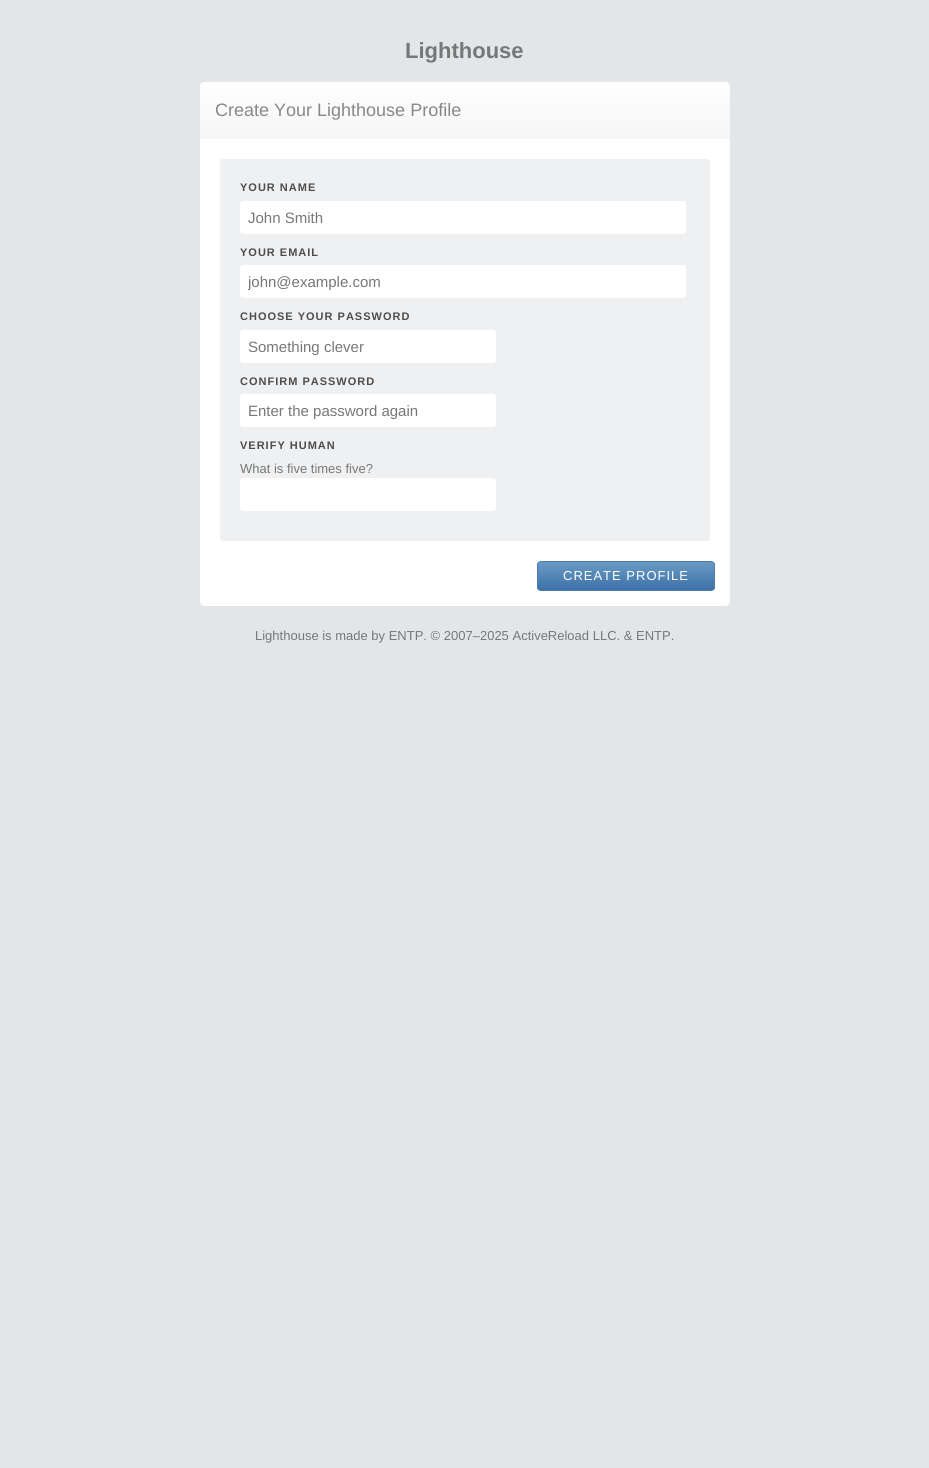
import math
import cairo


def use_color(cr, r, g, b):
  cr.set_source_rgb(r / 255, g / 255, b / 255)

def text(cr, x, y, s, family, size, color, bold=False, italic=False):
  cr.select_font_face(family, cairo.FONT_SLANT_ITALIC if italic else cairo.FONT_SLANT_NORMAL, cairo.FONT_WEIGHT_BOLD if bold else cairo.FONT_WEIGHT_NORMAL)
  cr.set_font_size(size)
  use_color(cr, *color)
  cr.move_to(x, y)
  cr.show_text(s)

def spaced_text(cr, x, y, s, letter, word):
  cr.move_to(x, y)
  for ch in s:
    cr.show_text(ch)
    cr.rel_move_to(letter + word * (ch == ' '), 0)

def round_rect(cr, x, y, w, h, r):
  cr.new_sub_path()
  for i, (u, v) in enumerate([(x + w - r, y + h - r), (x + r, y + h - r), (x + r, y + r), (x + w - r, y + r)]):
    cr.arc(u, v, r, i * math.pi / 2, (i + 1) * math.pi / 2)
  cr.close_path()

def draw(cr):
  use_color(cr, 226, 230, 233)
  cr.paint()
  use_color(cr, 255, 255, 255)
  round_rect(cr, 200, 82, 530, 524, 5)
  cr.fill()
  gradient = cairo.LinearGradient(465, 82, 465, 139)
  gradient.add_color_stop_rgba(0, 1, 1, 1, 1)
  gradient.add_color_stop_rgba(1, 0.961, 0.961, 0.961, 1)
  cr.set_source(gradient)
  cr.new_path()
  cr.move_to(205, 82)
  cr.line_to(725, 82)
  cr.curve_to(728, 82, 730, 84, 730, 87)
  cr.line_to(730, 139)
  cr.line_to(200, 139)
  cr.line_to(200, 87)
  cr.curve_to(200, 84, 202, 82, 205, 82)
  cr.close_path()
  cr.fill()
  use_color(cr, 238, 240, 242)
  round_rect(cr, 220, 159, 490, 382, 3)
  cr.fill()
  use_color(cr, 255, 255, 255)
  round_rect(cr, 240, 201, 446, 33, 3)
  cr.fill()
  round_rect(cr, 240, 265, 446, 33, 3)
  cr.fill()
  round_rect(cr, 240, 330, 256, 33, 3)
  cr.fill()
  round_rect(cr, 240, 394, 256, 33, 3)
  cr.fill()
  round_rect(cr, 240, 478, 256, 33, 3)
  cr.fill()
  cr.save()
  round_rect(cr, 537, 561, 178, 30, 4)
  cr.clip()
  gradient = cairo.LinearGradient(626, 562, 626, 590)
  gradient.add_color_stop_rgba(0, 0.412, 0.604, 0.773, 1)
  gradient.add_color_stop_rgba(1, 0.243, 0.443, 0.655, 1)
  cr.set_source(gradient)
  cr.rectangle(537, 562, 178, 28)
  cr.fill()
  cr.restore()
  round_rect(cr, 537.5, 561.5, 177, 29, 3.5)
  use_color(cr, 73, 125, 174)
  cr.set_line_width(1)
  cr.stroke()
  text(cr, 405, 58, "Lighthouse", "Liberation Sans", 22, (119, 119, 119), bold=True)
  text(cr, 215, 116, "Create Your Lighthouse Profile", "Liberation Sans", 18, (136, 136, 136))
  cr.select_font_face("Liberation Sans", cairo.FONT_SLANT_NORMAL, cairo.FONT_WEIGHT_BOLD)
  cr.set_font_size(11)
  use_color(cr, 77, 77, 77)
  spaced_text(cr, 240, 191, "YOUR NAME", 1, 0)
  text(cr, 248, 223, "John Smith", "Liberation Sans", 15, (119, 119, 119))
  cr.select_font_face("Liberation Sans", cairo.FONT_SLANT_NORMAL, cairo.FONT_WEIGHT_BOLD)
  cr.set_font_size(11)
  use_color(cr, 77, 77, 77)
  spaced_text(cr, 240, 256, "YOUR EMAIL", 1, 0)
  cr.save()
  cr.rectangle(248, 273, 430, 17)
  cr.clip()
  text(cr, 248, 287, "john@example.com", "Liberation Sans", 15, (119, 119, 119))
  cr.restore()
  spaced_text(cr, 240, 320, "CHOOSE YOUR PASSWORD", 1, 0)
  text(cr, 248, 352, "Something clever", "Liberation Sans", 15, (119, 119, 119))
  cr.select_font_face("Liberation Sans", cairo.FONT_SLANT_NORMAL, cairo.FONT_WEIGHT_BOLD)
  cr.set_font_size(11)
  use_color(cr, 77, 77, 77)
  spaced_text(cr, 240, 385, "CONFIRM PASSWORD", 1, 0)
  text(cr, 248, 416, "Enter the password again", "Liberation Sans", 15, (119, 119, 119))
  cr.select_font_face("Liberation Sans", cairo.FONT_SLANT_NORMAL, cairo.FONT_WEIGHT_BOLD)
  cr.set_font_size(11)
  use_color(cr, 77, 77, 77)
  spaced_text(cr, 240, 449, "VERIFY HUMAN", 1, 0)
  text(cr, 240, 473, "What is five times five?", "Liberation Sans", 13, (119, 119, 119))
  use_color(cr, 255, 255, 255)
  spaced_text(cr, 563, 580, "CREATE PROFILE", 1, 0)
  text(cr, 255, 640, "Lighthouse is made by ENTP. © 2007–2025 ActiveReload LLC. & ENTP.", "Liberation Sans", 13, (119, 119, 119))


surface = cairo.ImageSurface(cairo.FORMAT_RGB24, 929, 1468)
cr = cairo.Context(surface)
options = cairo.FontOptions()
options.set_hint_metrics(cairo.HINT_METRICS_OFF)
options.set_hint_style(cairo.HINT_STYLE_NONE)
cr.set_font_options(options)
cr.set_miter_limit(4)
draw(cr)
surface.write_to_png("out.png")
